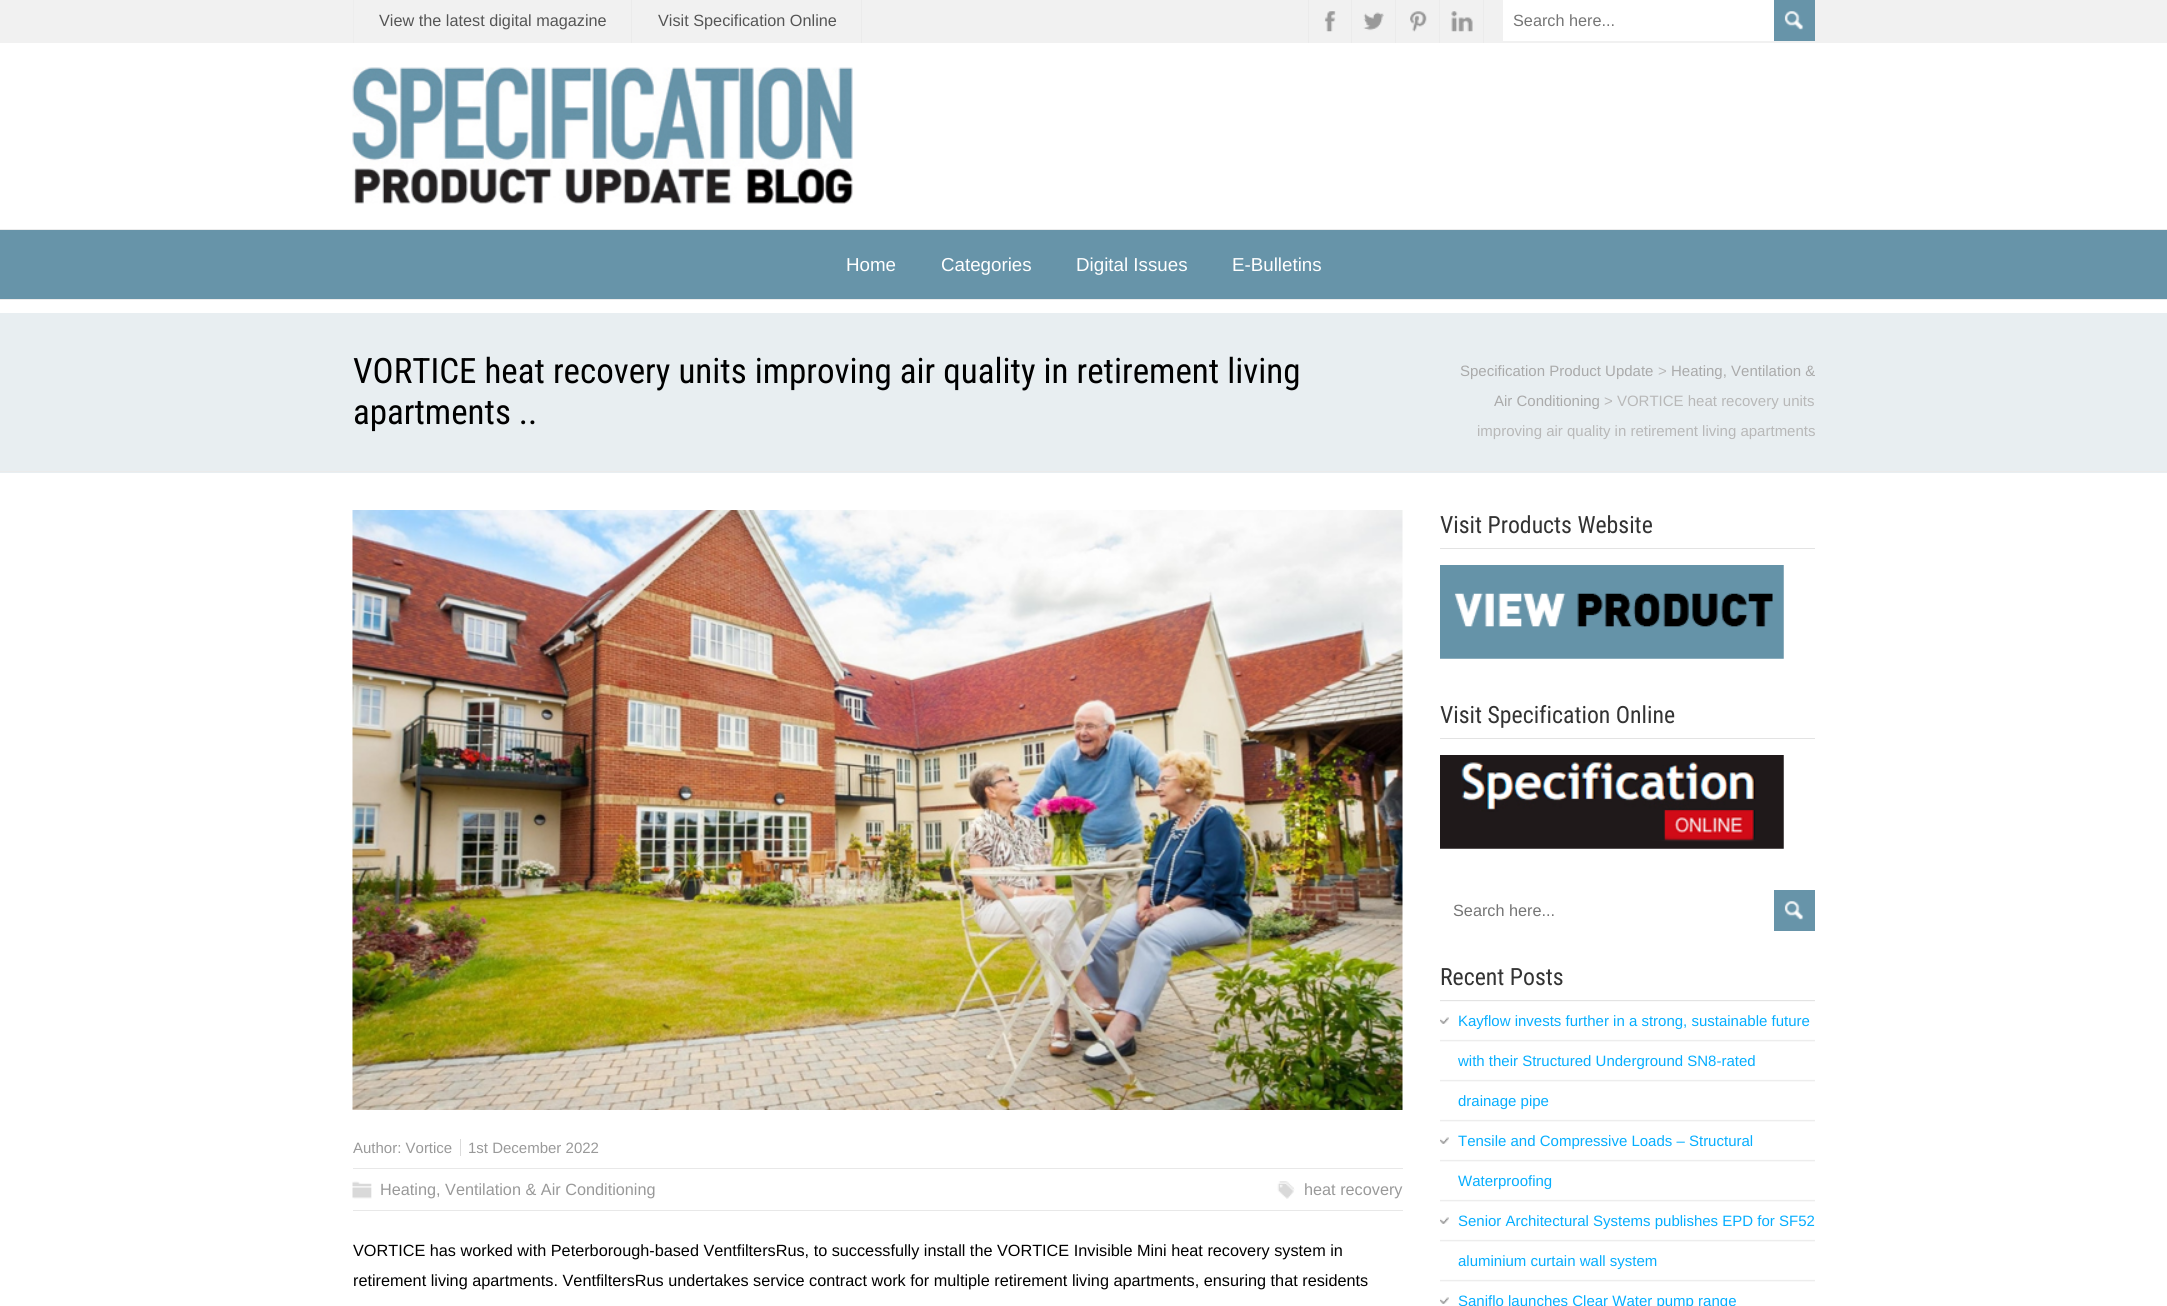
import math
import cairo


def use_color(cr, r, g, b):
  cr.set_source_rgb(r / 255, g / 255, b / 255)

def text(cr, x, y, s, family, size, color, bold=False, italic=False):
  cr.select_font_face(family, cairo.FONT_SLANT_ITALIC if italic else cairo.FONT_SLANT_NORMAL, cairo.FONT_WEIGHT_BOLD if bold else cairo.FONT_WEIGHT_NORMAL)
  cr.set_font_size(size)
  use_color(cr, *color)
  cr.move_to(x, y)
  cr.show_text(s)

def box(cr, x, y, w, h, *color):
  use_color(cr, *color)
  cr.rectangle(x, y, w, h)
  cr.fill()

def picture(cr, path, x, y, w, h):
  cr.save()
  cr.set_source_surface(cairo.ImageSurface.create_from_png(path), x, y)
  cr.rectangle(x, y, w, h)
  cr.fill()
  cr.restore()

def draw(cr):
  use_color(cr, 255, 255, 255)
  cr.paint()
  box(cr, 0, 0, 2167, 43, 241, 241, 241)
  box(cr, 353, 0, 1, 43, 237, 237, 237)
  box(cr, 631, 0, 1, 43, 235, 235, 235)
  box(cr, 861, 0, 1, 43, 235, 235, 235)
  box(cr, 1308, 0, 1, 43, 235, 235, 235)
  picture(cr, "img_01.png", 1324, 11, 12, 21)
  box(cr, 1351, 0, 1, 43, 235, 235, 235)
  picture(cr, "img_02.png", 1363, 12, 21, 19)
  box(cr, 1395, 0, 1, 43, 235, 235, 235)
  picture(cr, "img_03.png", 1410, 11, 17, 21)
  box(cr, 1439, 0, 1, 43, 235, 235, 235)
  picture(cr, "img_04.png", 1451, 11, 22, 21)
  box(cr, 1483, 0, 1, 43, 235, 235, 235)
  box(cr, 1503, 0, 271, 41, 255, 255, 255)
  box(cr, 1774, 0, 41, 41, 103, 148, 169)
  picture(cr, "img_05.png", 1784, 11, 20, 19)
  box(cr, 0, 229, 2167, 1, 235, 235, 235)
  picture(cr, "img_06.png", 352, 67, 501, 137)
  box(cr, 0, 230, 2167, 69, 103, 148, 169)
  box(cr, 0, 299, 2167, 1, 235, 235, 235)
  box(cr, 0, 313, 2167, 160, 232, 238, 241)
  box(cr, 0, 471, 2167, 1, 235, 235, 235)
  picture(cr, "img_07.png", 352, 510, 1051, 600)
  box(cr, 460, 1139, 1, 17, 219, 219, 219)
  box(cr, 353, 1168, 1050, 1, 232, 232, 232)
  box(cr, 353, 1210, 1050, 1, 232, 232, 232)
  picture(cr, "img_08.png", 352, 1181, 20, 18)
  picture(cr, "img_09.png", 1277, 1181, 18, 18)
  box(cr, 1440, 548, 375, 1, 227, 227, 227)
  picture(cr, "img_10.png", 1440, 565, 344, 94)
  box(cr, 1440, 738, 375, 1, 227, 227, 227)
  picture(cr, "img_11.png", 1440, 755, 344, 94)
  box(cr, 1774, 890, 41, 41, 103, 148, 169)
  picture(cr, "img_05.png", 1784, 901, 20, 19)
  box(cr, 1440, 1000, 375, 1, 227, 227, 227)
  picture(cr, "img_12.png", 1440, 1001, 375, 281)
  picture(cr, "img_13.png", 1440, 1017, 9, 7)
  picture(cr, "img_13.png", 1440, 1137, 9, 7)
  picture(cr, "img_13.png", 1440, 1217, 9, 7)
  picture(cr, "img_13.png", 1440, 1297, 9, 7)
  text(cr, 379, 26, "View the latest digital magazine", "Liberation Sans", 16.25, (85, 85, 85))
  text(cr, 658, 26, "Visit Specification Online", "Liberation Sans", 16.25, (85, 85, 85))
  text(cr, 1513, 26, "Search here...", "Liberation Sans", 16.25, (117, 117, 117))
  text(cr, 846, 271, "Home", "Liberation Sans", 18.75, (255, 255, 255))
  text(cr, 941, 271, "Categories", "Liberation Sans", 18.75, (255, 255, 255))
  text(cr, 1076, 271, "Digital Issues", "Liberation Sans", 18.75, (255, 255, 255))
  text(cr, 1232, 271, "E-Bulletins", "Liberation Sans", 18.75, (255, 255, 255))
  text(cr, 353, 383, "VORTICE heat recovery units improving air quality in retirement living", "Roboto Condensed", 35, (0, 0, 0))
  text(cr, 353, 424, "apartments ..", "Roboto Condensed", 35, (0, 0, 0))
  text(cr, 1460, 376, "Specification Product Update", "Liberation Sans", 15, (170, 170, 170))
  text(cr, 1658, 376, ">", "Liberation Sans", 15, (184, 184, 184))
  text(cr, 1671, 376, "Heating, Ventilation &", "Liberation Sans", 15, (170, 170, 170))
  text(cr, 1494, 406, "Air Conditioning", "Liberation Sans", 15, (170, 170, 170))
  text(cr, 1604, 406, "> VORTICE heat recovery units", "Liberation Sans", 15, (184, 184, 184))
  text(cr, 1477, 436, "improving air quality in retirement living apartments", "Liberation Sans", 15, (184, 184, 184))
  text(cr, 353, 1153, "Author: Vortice", "Liberation Sans", 15, (153, 153, 153))
  text(cr, 468, 1153, "1st December 2022", "Liberation Sans", 15, (153, 153, 153))
  text(cr, 380, 1195, "Heating, Ventilation & Air Conditioning", "Liberation Sans", 16.25, (153, 153, 153))
  text(cr, 1304, 1195, "heat recovery", "Liberation Sans", 16.25, (153, 153, 153))
  text(cr, 353, 1256, "VORTICE has worked with Peterborough-based VentfiltersRus, to successfully install the VORTICE Invisible Mini heat recovery system in", "Liberation Sans", 16.25, (0, 0, 0))
  text(cr, 353, 1286, "retirement living apartments. VentfiltersRus undertakes service contract work for multiple retirement living apartments, ensuring that residents", "Liberation Sans", 16.25, (0, 0, 0))
  text(cr, 1440, 533, "Visit Products Website", "Roboto Condensed", 23.75, (51, 51, 51))
  text(cr, 1440, 723, "Visit Specification Online", "Roboto Condensed", 23.75, (51, 51, 51))
  text(cr, 1453, 916, "Search here...", "Liberation Sans", 16.25, (117, 117, 117))
  text(cr, 1440, 985, "Recent Posts", "Roboto Condensed", 23.75, (51, 51, 51))
  text(cr, 1458, 1026, "Kayflow invests further in a strong, sustainable future", "Liberation Sans", 15, (6, 174, 255))
  text(cr, 1458, 1066, "with their Structured Underground SN8-rated", "Liberation Sans", 15, (6, 174, 255))
  text(cr, 1458, 1106, "drainage pipe", "Liberation Sans", 15, (6, 174, 255))
  text(cr, 1458, 1146, "Tensile and Compressive Loads – Structural", "Liberation Sans", 15, (6, 174, 255))
  text(cr, 1458, 1186, "Waterproofing", "Liberation Sans", 15, (6, 174, 255))
  text(cr, 1458, 1226, "Senior Architectural Systems publishes EPD for SF52", "Liberation Sans", 15, (6, 174, 255))
  text(cr, 1458, 1266, "aluminium curtain wall system", "Liberation Sans", 15, (6, 174, 255))
  text(cr, 1458, 1306, "Saniflo launches Clear Water pump range", "Liberation Sans", 15, (6, 174, 255))


surface = cairo.ImageSurface(cairo.FORMAT_RGB24, 2167, 1306)
cr = cairo.Context(surface)
options = cairo.FontOptions()
options.set_hint_metrics(cairo.HINT_METRICS_OFF)
options.set_hint_style(cairo.HINT_STYLE_NONE)
cr.set_font_options(options)
cr.set_miter_limit(4)
draw(cr)
surface.write_to_png("out.png")
